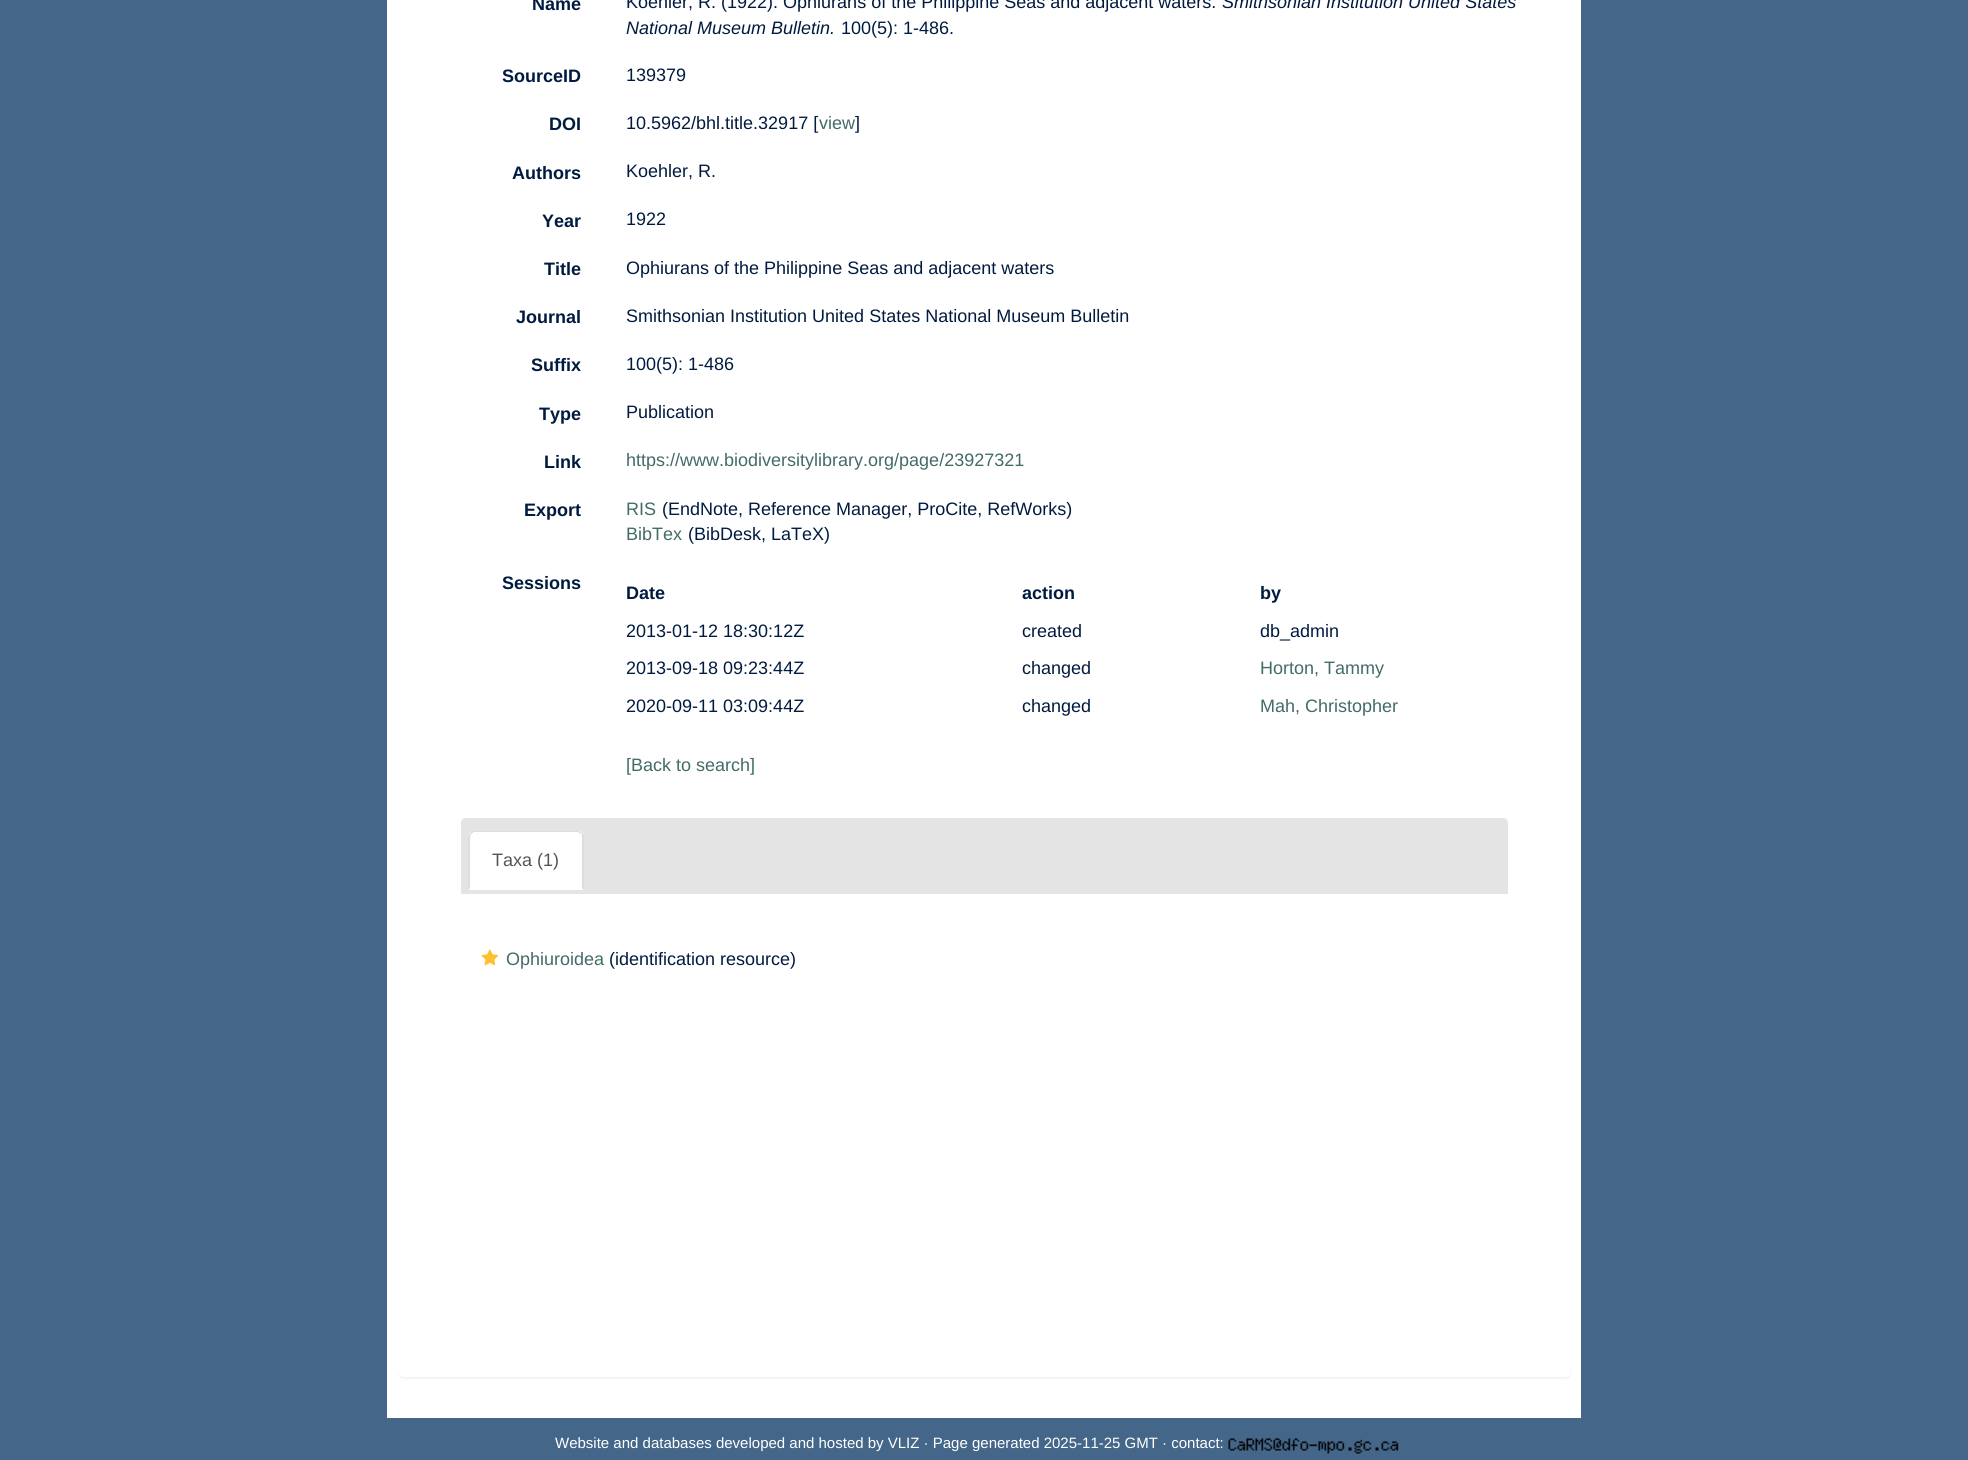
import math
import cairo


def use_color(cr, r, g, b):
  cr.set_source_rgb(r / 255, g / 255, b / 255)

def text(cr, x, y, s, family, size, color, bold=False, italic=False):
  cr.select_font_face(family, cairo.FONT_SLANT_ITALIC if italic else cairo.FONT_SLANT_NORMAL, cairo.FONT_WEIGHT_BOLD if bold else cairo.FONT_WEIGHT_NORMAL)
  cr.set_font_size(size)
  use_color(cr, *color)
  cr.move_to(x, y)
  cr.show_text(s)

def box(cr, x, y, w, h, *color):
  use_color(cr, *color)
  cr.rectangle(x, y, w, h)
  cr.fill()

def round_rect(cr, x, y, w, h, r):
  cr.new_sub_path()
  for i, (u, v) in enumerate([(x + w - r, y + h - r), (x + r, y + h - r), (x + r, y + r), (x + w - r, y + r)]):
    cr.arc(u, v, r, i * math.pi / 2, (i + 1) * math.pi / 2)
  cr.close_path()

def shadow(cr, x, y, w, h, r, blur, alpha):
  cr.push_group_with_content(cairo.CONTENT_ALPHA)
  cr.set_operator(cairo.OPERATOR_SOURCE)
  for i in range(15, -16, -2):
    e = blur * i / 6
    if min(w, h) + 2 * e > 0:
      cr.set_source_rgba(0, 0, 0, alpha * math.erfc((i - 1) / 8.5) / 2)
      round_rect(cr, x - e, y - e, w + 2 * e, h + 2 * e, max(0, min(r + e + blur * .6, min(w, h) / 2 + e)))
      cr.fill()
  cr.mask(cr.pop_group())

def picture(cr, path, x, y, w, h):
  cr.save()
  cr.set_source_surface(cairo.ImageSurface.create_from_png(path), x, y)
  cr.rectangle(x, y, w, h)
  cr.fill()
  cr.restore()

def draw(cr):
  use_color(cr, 68, 102, 136)
  cr.paint()
  box(cr, 387, 0, 1194, 1418, 255, 255, 255)
  cr.save()
  cr.set_fill_rule(cairo.FILL_RULE_EVEN_ODD)
  cr.new_path()
  cr.move_to(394, 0)
  cr.line_to(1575, 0)
  cr.line_to(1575, 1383)
  cr.line_to(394, 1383)
  cr.close_path()
  cr.move_to(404, -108)
  cr.line_to(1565, -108)
  cr.curve_to(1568.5, -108, 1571, -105.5, 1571, -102)
  cr.line_to(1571, 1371)
  cr.curve_to(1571, 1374.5, 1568.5, 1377, 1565, 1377)
  cr.line_to(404, 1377)
  cr.curve_to(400.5, 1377, 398, 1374.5, 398, 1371)
  cr.line_to(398, -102)
  cr.curve_to(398, -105.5, 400.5, -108, 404, -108)
  cr.close_path()
  cr.clip()
  use_color(cr, 0, 0, 0)
  shadow(cr, 398, -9, 1173, 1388, 6, 1, 0.05)
  cr.restore()
  cr.set_source_rgba(0.471, 0.471, 0.471, 0.2)
  cr.new_path()
  cr.move_to(466, 818)
  cr.line_to(1503, 818)
  cr.curve_to(1506, 818, 1508, 820, 1508, 823)
  cr.line_to(1508, 894)
  cr.line_to(461, 894)
  cr.line_to(461, 823)
  cr.curve_to(461, 820, 463, 818, 466, 818)
  cr.close_path()
  cr.fill()
  use_color(cr, 255, 255, 255)
  cr.new_path()
  cr.move_to(474, 831)
  cr.line_to(578, 831)
  cr.curve_to(581.5, 831, 584, 833.5, 584, 837)
  cr.line_to(584, 890)
  cr.line_to(468, 890)
  cr.line_to(468, 837)
  cr.curve_to(468, 833.5, 470.5, 831, 474, 831)
  cr.close_path()
  cr.fill()
  use_color(cr, 221, 221, 221)
  cr.new_path()
  cr.move_to(474, 831)
  cr.curve_to(472, 831, 471, 832, 470, 833)
  cr.line_to(471, 834)
  cr.line_to(474, 832)
  cr.line_to(578, 832)
  cr.line_to(581, 834)
  cr.line_to(582, 833)
  cr.curve_to(581, 832, 579, 831, 578, 831)
  cr.close_path()
  cr.fill()
  cr.new_path()
  cr.move_to(582, 833)
  cr.line_to(584, 835)
  cr.line_to(584, 890)
  cr.line_to(582, 888)
  cr.line_to(582, 837)
  cr.curve_to(582, 836, 582, 835, 581, 834)
  cr.close_path()
  cr.fill()
  cr.new_path()
  cr.move_to(468, 890)
  cr.line_to(470, 888)
  cr.line_to(470, 837)
  cr.line_to(471, 834)
  cr.line_to(470, 833)
  cr.curve_to(469, 834, 468, 836, 468, 837)
  cr.close_path()
  cr.fill()
  picture(cr, "img_01.png", 481, 949, 18, 17)
  picture(cr, "img_02.png", 1228, 1438, 171, 16)
  text(cr, 532, 10, "Name", "Liberation Sans", 18, (1, 27, 64), bold=True)
  text(cr, 626, 8, "Koehler, R. (1922). Ophiurans of the Philippine Seas and adjacent waters.", "Liberation Sans", 18, (1, 27, 64))
  text(cr, 1222, 8, "Smithsonian Institution United States", "Liberation Sans", 18, (1, 27, 64), italic=True)
  text(cr, 626, 34, "National Museum Bulletin.", "Liberation Sans", 18, (1, 27, 64), italic=True)
  text(cr, 841, 34, "100(5): 1-486.", "Liberation Sans", 18, (1, 27, 64))
  text(cr, 502, 82, "SourceID", "Liberation Sans", 18, (1, 27, 64), bold=True)
  text(cr, 626, 81, "139379", "Liberation Sans", 18, (1, 27, 64))
  text(cr, 549, 130, "DOI", "Liberation Sans", 18, (1, 27, 64), bold=True)
  text(cr, 626, 129, "10.5962/bhl.title.32917 [", "Liberation Sans", 18, (1, 27, 64))
  text(cr, 819, 129, "view", "Liberation Sans", 18, (67, 107, 103))
  text(cr, 855, 129, "]", "Liberation Sans", 18, (1, 27, 64))
  text(cr, 512, 179, "Authors", "Liberation Sans", 18, (1, 27, 64), bold=True)
  text(cr, 626, 177, "Koehler, R.", "Liberation Sans", 18, (1, 27, 64))
  text(cr, 542, 227, "Year", "Liberation Sans", 18, (1, 27, 64), bold=True)
  text(cr, 626, 225, "1922", "Liberation Sans", 18, (1, 27, 64))
  text(cr, 544, 275, "Title", "Liberation Sans", 18, (1, 27, 64), bold=True)
  text(cr, 626, 274, "Ophiurans of the Philippine Seas and adjacent waters", "Liberation Sans", 18, (1, 27, 64))
  text(cr, 516, 323, "Journal", "Liberation Sans", 18, (1, 27, 64), bold=True)
  text(cr, 626, 322, "Smithsonian Institution United States National Museum Bulletin", "Liberation Sans", 18, (1, 27, 64))
  text(cr, 531, 371, "Suffix", "Liberation Sans", 18, (1, 27, 64), bold=True)
  text(cr, 626, 370, "100(5): 1-486", "Liberation Sans", 18, (1, 27, 64))
  text(cr, 539, 420, "Type", "Liberation Sans", 18, (1, 27, 64), bold=True)
  text(cr, 626, 418, "Publication", "Liberation Sans", 18, (1, 27, 64))
  text(cr, 544, 468, "Link", "Liberation Sans", 18, (1, 27, 64), bold=True)
  text(cr, 626, 466, "https://www.biodiversitylibrary.org/page/23927321", "Liberation Sans", 18, (67, 107, 103))
  text(cr, 524, 516, "Export", "Liberation Sans", 18, (1, 27, 64), bold=True)
  text(cr, 626, 515, "RIS", "Liberation Sans", 18, (67, 107, 103))
  text(cr, 662, 515, "(EndNote, Reference Manager, ProCite, RefWorks)", "Liberation Sans", 18, (1, 27, 64))
  text(cr, 626, 540, "BibTex", "Liberation Sans", 18, (67, 107, 103))
  text(cr, 688, 540, "(BibDesk, LaTeX)", "Liberation Sans", 18, (1, 27, 64))
  text(cr, 502, 589, "Sessions", "Liberation Sans", 18, (1, 27, 64), bold=True)
  text(cr, 626, 599, "Date", "Liberation Sans", 18, (1, 27, 64), bold=True)
  text(cr, 1022, 599, "action", "Liberation Sans", 18, (1, 27, 64), bold=True)
  text(cr, 1260, 599, "by", "Liberation Sans", 18, (1, 27, 64), bold=True)
  text(cr, 626, 637, "2013-01-12 18:30:12Z", "Liberation Sans", 18, (1, 27, 64))
  text(cr, 1022, 637, "created", "Liberation Sans", 18, (1, 27, 64))
  text(cr, 1260, 637, "db_admin", "Liberation Sans", 18, (1, 27, 64))
  text(cr, 626, 674, "2013-09-18 09:23:44Z", "Liberation Sans", 18, (1, 27, 64))
  text(cr, 1022, 674, "changed", "Liberation Sans", 18, (1, 27, 64))
  text(cr, 1260, 674, "Horton, Tammy", "Liberation Sans", 18, (67, 107, 103))
  text(cr, 626, 712, "2020-09-11 03:09:44Z", "Liberation Sans", 18, (1, 27, 64))
  text(cr, 1022, 712, "changed", "Liberation Sans", 18, (1, 27, 64))
  text(cr, 1260, 712, "Mah, Christopher", "Liberation Sans", 18, (67, 107, 103))
  text(cr, 626, 771, "[Back to search]", "Liberation Sans", 18, (67, 107, 103))
  text(cr, 492, 866, "Taxa (1)", "Liberation Sans", 18, (85, 85, 85))
  text(cr, 506, 965, "Ophiuroidea", "Liberation Sans", 18, (67, 107, 103))
  text(cr, 609, 965, "(identification resource)", "Liberation Sans", 18, (1, 27, 64))
  text(cr, 555, 1448, "Website and databases developed and hosted by VLIZ · Page generated 2025-11-25 GMT · contact:", "Liberation Sans", 15, (255, 255, 255))


surface = cairo.ImageSurface(cairo.FORMAT_RGB24, 1968, 1460)
cr = cairo.Context(surface)
options = cairo.FontOptions()
options.set_hint_metrics(cairo.HINT_METRICS_OFF)
options.set_hint_style(cairo.HINT_STYLE_NONE)
cr.set_font_options(options)
cr.set_miter_limit(4)
draw(cr)
surface.write_to_png("out.png")
